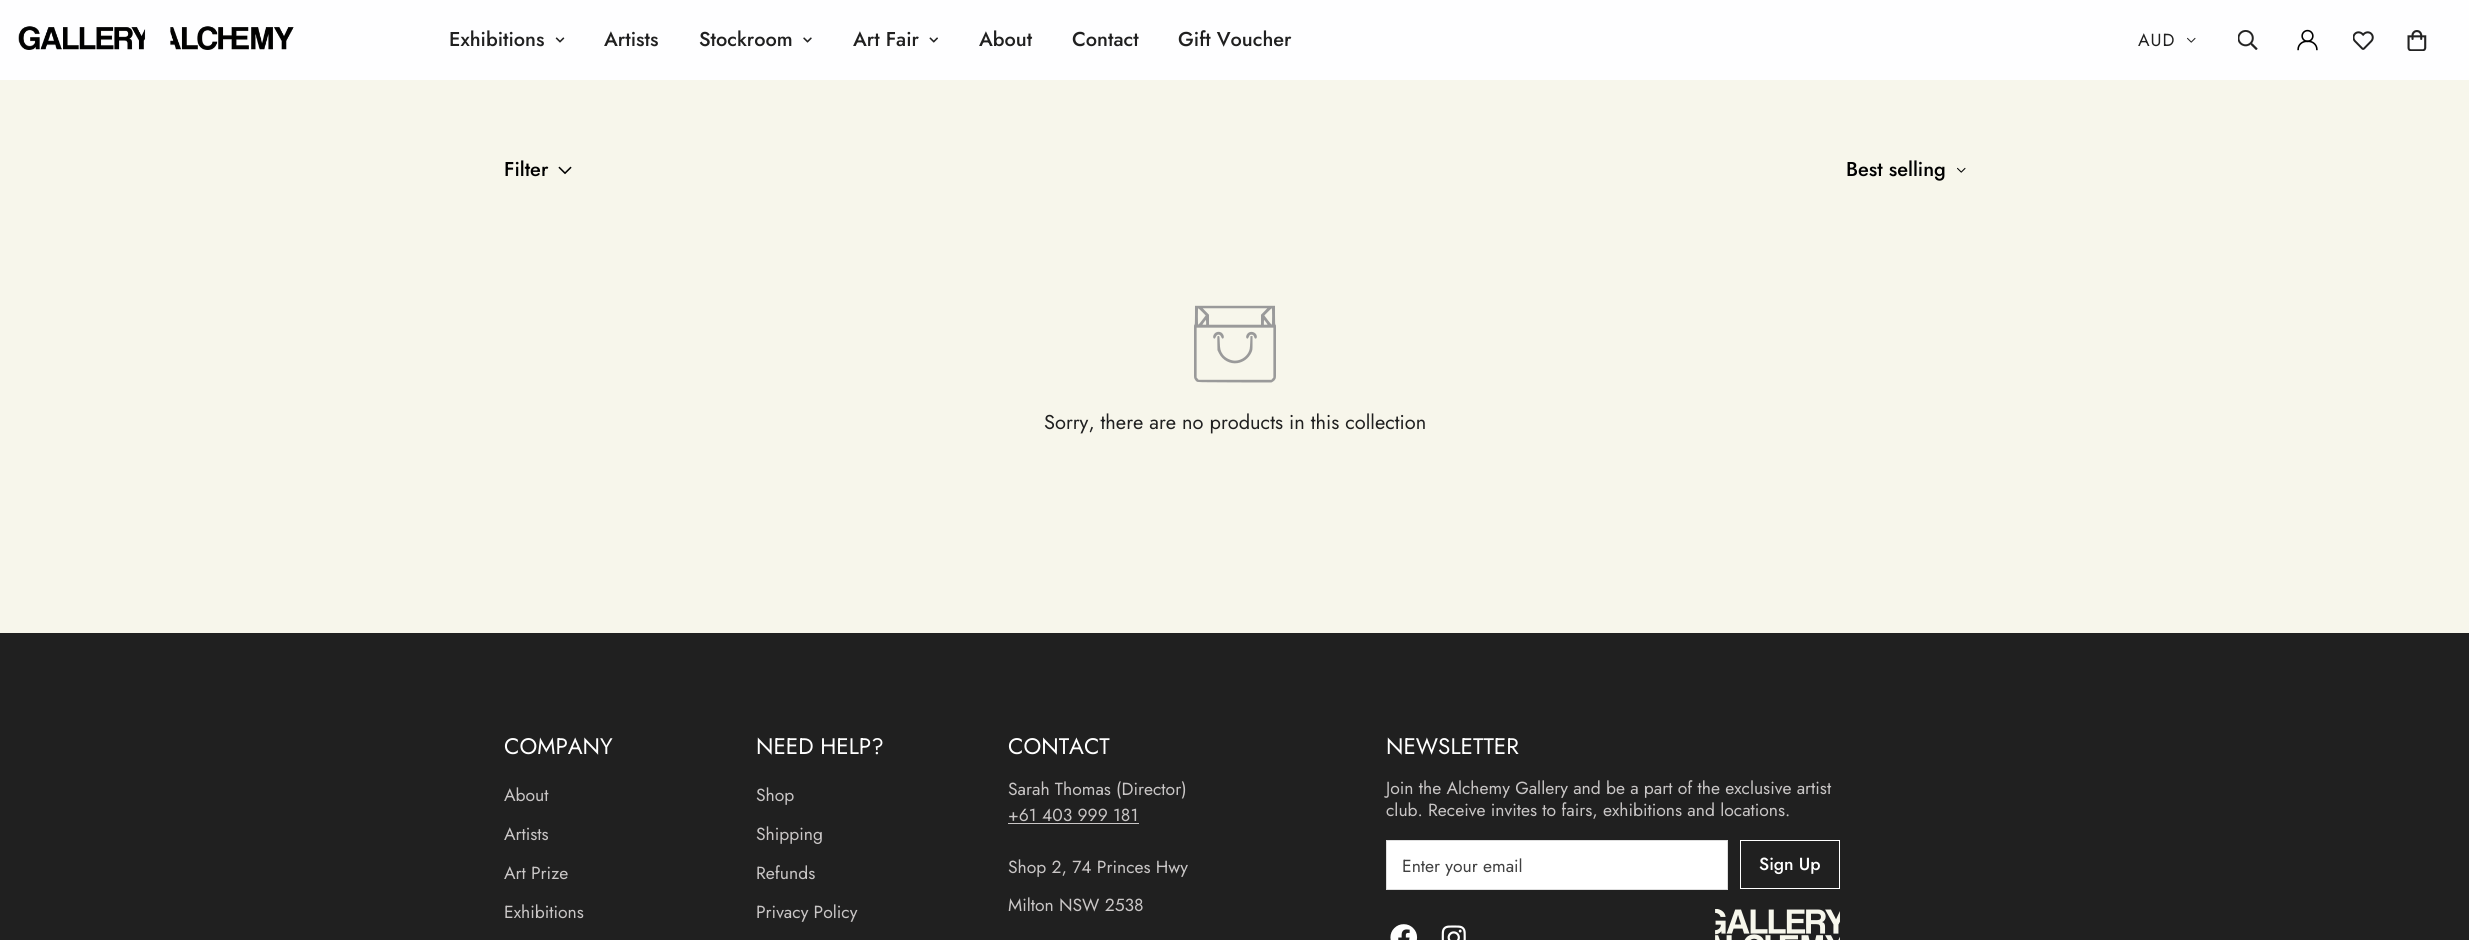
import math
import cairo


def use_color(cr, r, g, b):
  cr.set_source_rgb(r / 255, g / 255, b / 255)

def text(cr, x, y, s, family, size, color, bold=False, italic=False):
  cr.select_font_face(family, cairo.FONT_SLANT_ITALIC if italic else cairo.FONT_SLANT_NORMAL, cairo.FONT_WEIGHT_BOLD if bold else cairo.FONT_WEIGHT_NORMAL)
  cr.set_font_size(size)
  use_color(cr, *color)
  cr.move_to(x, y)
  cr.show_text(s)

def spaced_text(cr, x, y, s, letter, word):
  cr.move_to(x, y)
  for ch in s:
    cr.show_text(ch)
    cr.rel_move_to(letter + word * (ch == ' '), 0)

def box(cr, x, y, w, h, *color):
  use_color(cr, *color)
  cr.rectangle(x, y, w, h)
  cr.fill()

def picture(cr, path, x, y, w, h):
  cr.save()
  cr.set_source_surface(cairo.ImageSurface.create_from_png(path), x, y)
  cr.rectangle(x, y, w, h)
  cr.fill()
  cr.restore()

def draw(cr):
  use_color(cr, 247, 246, 235)
  cr.paint()
  box(cr, 0, 0, 2469, 80, 254, 254, 255)
  picture(cr, "img_01.png", 18, 26, 276, 24)
  picture(cr, "img_02.png", 555, 37, 10, 6)
  picture(cr, "img_03.png", 803, 37, 9, 6)
  picture(cr, "img_04.png", 929, 37, 9, 6)
  picture(cr, "img_05.png", 2187, 37, 9, 6)
  picture(cr, "img_06.png", 2238, 30, 20, 20)
  picture(cr, "img_07.png", 2297, 29, 21, 22)
  picture(cr, "img_08.png", 2353, 31, 21, 19)
  picture(cr, "img_09.png", 2407, 30, 20, 21)
  picture(cr, "img_10.png", 558, 166, 14, 9)
  picture(cr, "img_11.png", 1957, 167, 9, 6)
  picture(cr, "img_12.png", 1194, 305, 82, 78)
  box(cr, 0, 633, 2469, 307, 32, 32, 32)
  box(cr, 1008, 823, 131, 1, 201, 198, 198)
  use_color(cr, 255, 255, 255)
  cr.rectangle(1386.5, 840.5, 341, 49)
  cr.fill_preserve()
  use_color(cr, 222, 222, 222)
  cr.set_line_width(1)
  cr.stroke()
  cr.rectangle(1740.5, 840.5, 99, 48)
  use_color(cr, 255, 255, 255)
  cr.stroke()
  picture(cr, "img_13.png", 1390, 924, 28, 16)
  picture(cr, "img_14.png", 1441, 925, 25, 15)
  picture(cr, "img_15.png", 1715, 909, 125, 31)
  text(cr, 449, 46, "Exhibitions", "Jost Medium", 20, (32, 32, 32))
  text(cr, 604, 46, "Artists", "Jost Medium", 20, (32, 32, 32))
  text(cr, 699, 46, "Stockroom", "Jost Medium", 20, (32, 32, 32))
  text(cr, 853, 46, "Art Fair", "Jost Medium", 20, (32, 32, 32))
  text(cr, 979, 46, "About", "Jost Medium", 20, (32, 32, 32))
  text(cr, 1072, 46, "Contact", "Jost Medium", 20, (32, 32, 32))
  text(cr, 1178, 46, "Gift Voucher", "Jost Medium", 20, (32, 32, 32))
  cr.select_font_face("Jost")
  cr.set_font_size(17.5)
  spaced_text(cr, 2138, 46, "AUD", 1, 0)
  text(cr, 504, 176, "Filter", "Jost Medium", 20, (0, 0, 0))
  text(cr, 1846, 176, "Best selling", "Jost Medium", 20, (0, 0, 0))
  text(cr, 1044, 429, "Sorry, there are no products in this collection", "Jost", 20, (32, 32, 32))
  text(cr, 504, 754, "COMPANY", "Jost", 22.5, (255, 255, 255))
  text(cr, 504, 801, "About", "Jost", 17.5, (201, 198, 198))
  text(cr, 504, 840, "Artists", "Jost", 17.5, (201, 198, 198))
  text(cr, 504, 879, "Art Prize", "Jost", 17.5, (201, 198, 198))
  text(cr, 504, 918, "Exhibitions", "Jost", 17.5, (201, 198, 198))
  text(cr, 756, 754, "NEED HELP?", "Jost", 22.5, (255, 255, 255))
  text(cr, 756, 801, "Shop", "Jost", 17.5, (201, 198, 198))
  text(cr, 756, 840, "Shipping", "Jost", 17.5, (201, 198, 198))
  text(cr, 756, 879, "Refunds", "Jost", 17.5, (201, 198, 198))
  text(cr, 756, 918, "Privacy Policy", "Jost", 17.5, (201, 198, 198))
  text(cr, 1008, 754, "CONTACT", "Jost", 22.5, (255, 255, 255))
  text(cr, 1008, 795, "Sarah Thomas (Director)", "Jost", 17.5, (201, 198, 198))
  text(cr, 1008, 821, "+61 403 999 181", "Jost", 17.5, (201, 198, 198))
  text(cr, 1008, 873, "Shop 2, 74 Princes Hwy", "Jost", 17.5, (201, 198, 198))
  text(cr, 1008, 911, "Milton NSW 2538", "Jost", 17.5, (201, 198, 198))
  text(cr, 1386, 754, "NEWSLETTER", "Jost", 22.5, (255, 255, 255))
  text(cr, 1386, 794, "Join the Alchemy Gallery and be a part of the exclusive artist", "Jost", 17.5, (201, 198, 198))
  text(cr, 1386, 816, "club. Receive invites to fairs, exhibitions and locations.", "Jost", 17.5, (201, 198, 198))
  text(cr, 1402, 872, "Enter your email", "Jost", 17.5, (64, 64, 64))
  text(cr, 1759, 870, "Sign Up", "Jost Medium", 17.5, (255, 255, 255))


surface = cairo.ImageSurface(cairo.FORMAT_RGB24, 2469, 940)
cr = cairo.Context(surface)
options = cairo.FontOptions()
options.set_hint_metrics(cairo.HINT_METRICS_OFF)
options.set_hint_style(cairo.HINT_STYLE_NONE)
cr.set_font_options(options)
cr.set_miter_limit(4)
draw(cr)
surface.write_to_png("out.png")
